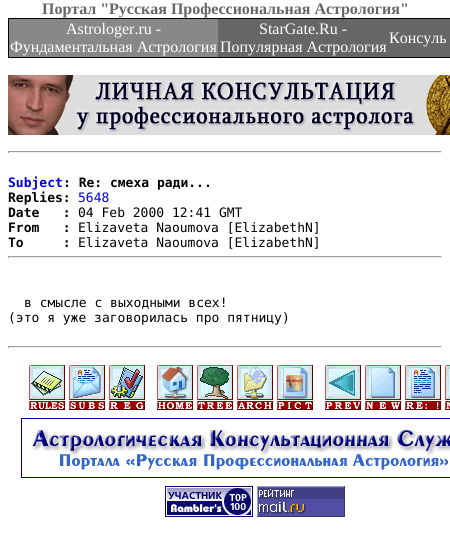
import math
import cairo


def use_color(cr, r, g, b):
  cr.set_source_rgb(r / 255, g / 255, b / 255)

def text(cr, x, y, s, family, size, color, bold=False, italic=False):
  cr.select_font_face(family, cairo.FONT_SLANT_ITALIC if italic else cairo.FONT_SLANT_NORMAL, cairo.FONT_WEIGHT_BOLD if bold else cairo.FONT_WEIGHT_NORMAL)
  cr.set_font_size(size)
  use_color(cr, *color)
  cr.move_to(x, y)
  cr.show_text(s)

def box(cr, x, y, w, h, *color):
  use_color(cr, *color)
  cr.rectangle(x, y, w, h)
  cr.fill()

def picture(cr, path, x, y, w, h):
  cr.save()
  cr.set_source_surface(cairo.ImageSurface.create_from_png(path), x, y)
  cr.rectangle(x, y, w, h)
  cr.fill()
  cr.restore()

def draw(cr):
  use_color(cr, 255, 255, 255)
  cr.paint()
  box(cr, 8, 18, 442, 40, 0, 0, 0)
  box(cr, 218, 19, 232, 38, 102, 102, 102)
  box(cr, 9, 19, 209, 38, 136, 136, 136)
  picture(cr, "img_01.png", 8, 75, 442, 60)
  box(cr, 8, 151, 434, 1, 159, 159, 159)
  box(cr, 441, 151, 1, 2, 238, 238, 238)
  box(cr, 8, 152, 434, 1, 238, 238, 238)
  box(cr, 8, 151, 1, 2, 159, 159, 159)
  box(cr, 8, 256, 434, 1, 159, 159, 159)
  box(cr, 441, 256, 1, 2, 238, 238, 238)
  box(cr, 8, 257, 434, 1, 238, 238, 238)
  box(cr, 8, 256, 1, 2, 159, 159, 159)
  box(cr, 8, 346, 434, 1, 159, 159, 159)
  box(cr, 441, 346, 1, 2, 238, 238, 238)
  box(cr, 8, 347, 434, 1, 238, 238, 238)
  box(cr, 8, 346, 1, 2, 159, 159, 159)
  picture(cr, "img_02.png", 29, 365, 36, 45)
  picture(cr, "img_03.png", 69, 365, 36, 45)
  picture(cr, "img_04.png", 109, 365, 36, 45)
  picture(cr, "img_05.png", 157, 365, 36, 45)
  picture(cr, "img_06.png", 197, 365, 36, 45)
  picture(cr, "img_07.png", 237, 365, 36, 45)
  picture(cr, "img_08.png", 277, 365, 36, 45)
  picture(cr, "img_09.png", 325, 365, 36, 45)
  picture(cr, "img_10.png", 365, 365, 36, 45)
  picture(cr, "img_11.png", 405, 365, 36, 45)
  picture(cr, "img_12.png", 445, 365, 5, 45)
  picture(cr, "img_13.png", 21, 418, 429, 60)
  picture(cr, "img_14.png", 165, 486, 88, 31)
  picture(cr, "img_15.png", 257, 486, 88, 31)
  text(cr, 42, 14, "Портал \"Русская Профессиональная Астрология\"", "Liberation Serif", 16, (102, 102, 102), bold=True)
  text(cr, 66, 34, "Astrologer.ru -", "Liberation Serif", 16, (255, 255, 255))
  text(cr, 10, 52, "Фундаментальная Астрология", "Liberation Serif", 16, (255, 255, 255))
  text(cr, 259, 34, "StarGate.Ru -", "Liberation Serif", 16, (255, 255, 255))
  text(cr, 220, 52, "Популярная Астрология", "Liberation Serif", 16, (255, 255, 255))
  text(cr, 389, 43, "Консуль", "Liberation Serif", 16, (255, 255, 255))
  text(cr, 8, 187, "Subject", "DejaVu Sans Mono", 13, (0, 0, 238), bold=True)
  text(cr, 63, 187, ": Re: смеха ради...", "DejaVu Sans Mono", 13, (0, 0, 0), bold=True)
  text(cr, 8, 202, "Replies:", "DejaVu Sans Mono", 13, (0, 0, 0), bold=True)
  text(cr, 78, 202, "5648", "DejaVu Sans Mono", 13, (0, 0, 238))
  text(cr, 8, 217, "Date   :", "DejaVu Sans Mono", 13, (0, 0, 0), bold=True)
  text(cr, 78, 217, "04 Feb 2000 12:41 GMT", "DejaVu Sans Mono", 13, (0, 0, 0))
  text(cr, 8, 232, "From   :", "DejaVu Sans Mono", 13, (0, 0, 0), bold=True)
  text(cr, 78, 232, "Elizaveta Naoumova [ElizabethN]", "DejaVu Sans Mono", 13, (0, 0, 0))
  text(cr, 8, 247, "To     :", "DejaVu Sans Mono", 13, (0, 0, 0), bold=True)
  text(cr, 78, 247, "Elizaveta Naoumova [ElizabethN]", "DejaVu Sans Mono", 13, (0, 0, 0))
  text(cr, 24, 307, "в смысле с выходными всех!", "DejaVu Sans Mono", 13, (0, 0, 0))
  text(cr, 8, 322, "(это я уже заговорилась про пятницу)", "DejaVu Sans Mono", 13, (0, 0, 0))


surface = cairo.ImageSurface(cairo.FORMAT_RGB24, 450, 551)
cr = cairo.Context(surface)
options = cairo.FontOptions()
options.set_hint_metrics(cairo.HINT_METRICS_OFF)
options.set_hint_style(cairo.HINT_STYLE_NONE)
cr.set_font_options(options)
cr.set_miter_limit(4)
draw(cr)
surface.write_to_png("out.png")
